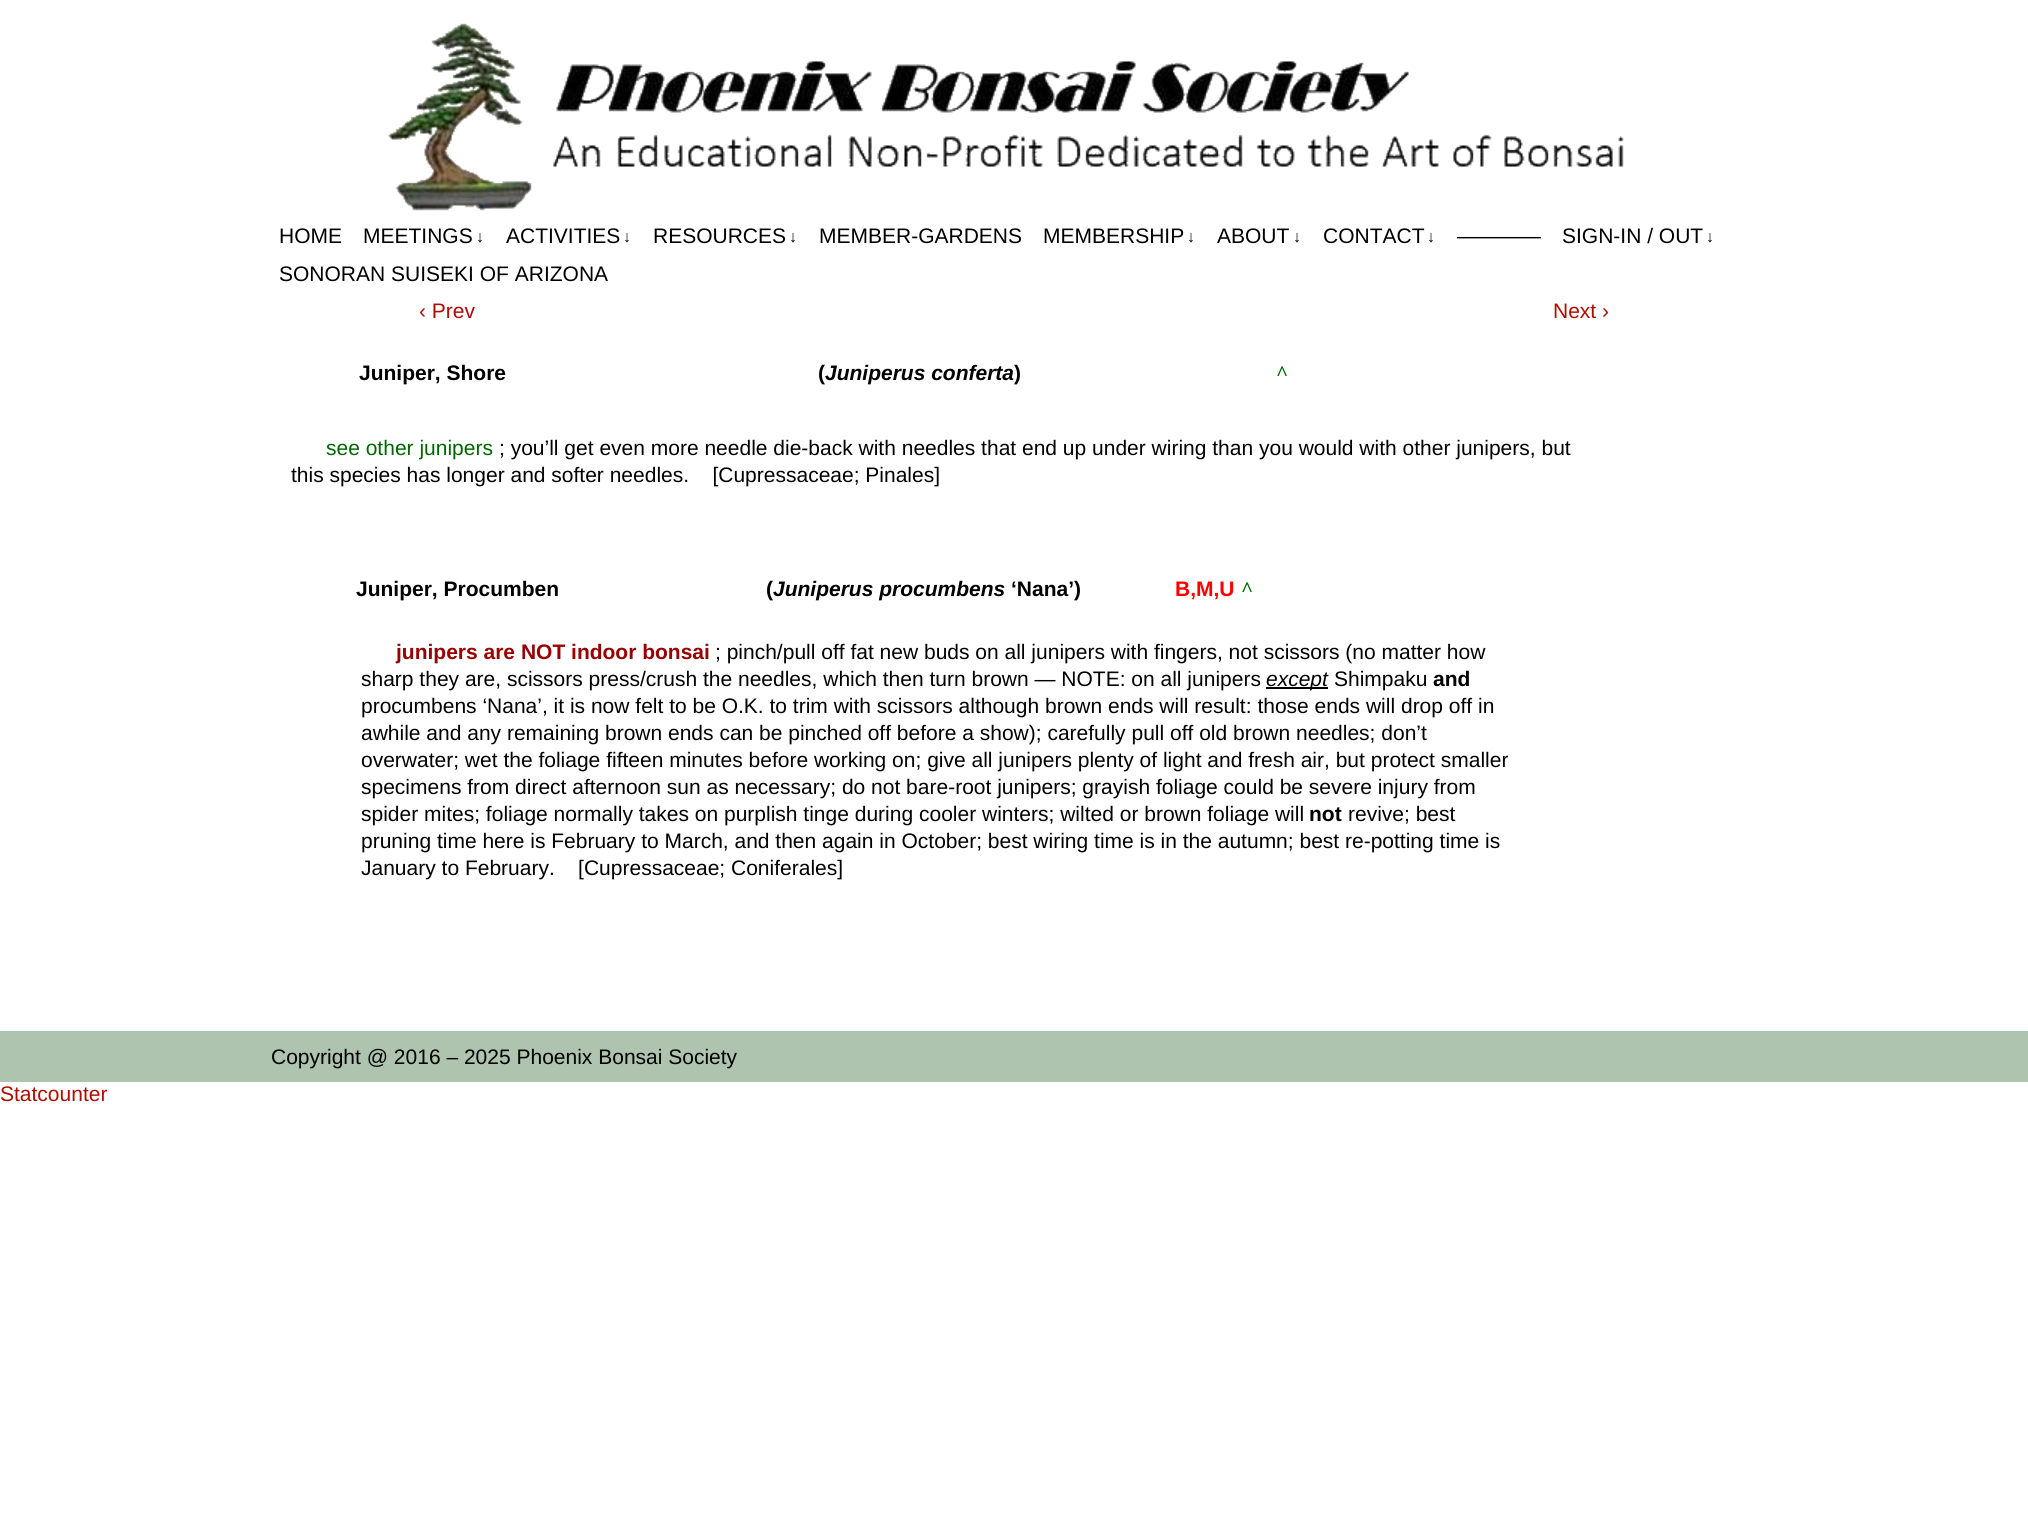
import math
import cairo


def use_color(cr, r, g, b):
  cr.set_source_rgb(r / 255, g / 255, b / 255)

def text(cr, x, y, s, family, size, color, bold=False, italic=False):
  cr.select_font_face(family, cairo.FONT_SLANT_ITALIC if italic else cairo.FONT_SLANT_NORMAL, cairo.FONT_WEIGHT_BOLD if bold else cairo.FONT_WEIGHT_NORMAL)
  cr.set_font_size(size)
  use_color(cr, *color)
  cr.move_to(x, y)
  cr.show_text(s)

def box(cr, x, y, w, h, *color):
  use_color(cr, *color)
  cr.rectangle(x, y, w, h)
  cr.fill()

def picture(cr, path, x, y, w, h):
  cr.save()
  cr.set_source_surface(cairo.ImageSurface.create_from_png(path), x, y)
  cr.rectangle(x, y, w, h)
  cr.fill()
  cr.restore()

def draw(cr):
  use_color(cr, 255, 255, 255)
  cr.paint()
  picture(cr, "img_01.png", 388, 23, 1236, 188)
  box(cr, 1266, 687, 62, 2, 0, 0, 0)
  box(cr, 0, 1031, 2028, 51, 174, 196, 174)
  text(cr, 279, 243, "HOME", "Liberation Sans", 21, (0, 0, 0))
  text(cr, 363, 243, "MEETINGS", "Liberation Sans", 21, (0, 0, 0))
  text(cr, 476, 242, "↓", "Liberation Sans", 16, (0, 0, 0))
  text(cr, 506, 243, "ACTIVITIES", "Liberation Sans", 21, (0, 0, 0))
  text(cr, 623, 242, "↓", "Liberation Sans", 16, (0, 0, 0))
  text(cr, 653, 243, "RESOURCES", "Liberation Sans", 21, (0, 0, 0))
  text(cr, 789, 242, "↓", "Liberation Sans", 16, (0, 0, 0))
  text(cr, 819, 243, "MEMBER-GARDENS", "Liberation Sans", 21, (0, 0, 0))
  text(cr, 1043, 243, "MEMBERSHIP", "Liberation Sans", 21, (0, 0, 0))
  text(cr, 1187, 242, "↓", "Liberation Sans", 16, (0, 0, 0))
  text(cr, 1217, 243, "ABOUT", "Liberation Sans", 21, (0, 0, 0))
  text(cr, 1293, 242, "↓", "Liberation Sans", 16, (0, 0, 0))
  text(cr, 1323, 243, "CONTACT", "Liberation Sans", 21, (0, 0, 0))
  text(cr, 1427, 242, "↓", "Liberation Sans", 16, (0, 0, 0))
  text(cr, 1457, 243, "————", "Liberation Sans", 21, (0, 0, 0))
  text(cr, 1562, 243, "SIGN-IN / OUT", "Liberation Sans", 21, (0, 0, 0))
  text(cr, 1706, 242, "↓", "Liberation Sans", 16, (0, 0, 0))
  text(cr, 279, 281, "SONORAN SUISEKI OF ARIZONA", "Liberation Sans", 21, (0, 0, 0))
  text(cr, 419, 318, "‹ Prev", "Liberation Sans", 21, (176, 11, 0))
  text(cr, 1553, 318, "Next ›", "Liberation Sans", 21, (176, 11, 0))
  text(cr, 359, 380, "Juniper, Shore", "Liberation Sans", 21, (0, 0, 0), bold=True)
  text(cr, 818, 380, "(", "Liberation Sans", 21, (0, 0, 0), bold=True)
  text(cr, 825, 380, "Juniperus conferta", "Liberation Sans", 21, (0, 0, 0), bold=True, italic=True)
  text(cr, 1014, 380, ")", "Liberation Sans", 21, (0, 0, 0), bold=True)
  text(cr, 1276, 380, "^", "Liberation Serif", 21, (0, 102, 0), bold=True)
  text(cr, 326, 455, "see other junipers", "Liberation Sans", 21, (0, 102, 0))
  text(cr, 499, 455, "; you’ll get even more needle die-back with needles that end up under wiring than you would with other junipers, but", "Liberation Sans", 21, (0, 0, 0))
  text(cr, 291, 482, "this species has longer and softer needles.    [Cupressaceae; Pinales]", "Liberation Sans", 21, (0, 0, 0))
  text(cr, 356, 596, "Juniper, Procumben", "Liberation Sans", 21, (0, 0, 0), bold=True)
  text(cr, 766, 596, "(", "Liberation Sans", 21, (0, 0, 0), bold=True)
  text(cr, 773, 596, "Juniperus procumbens", "Liberation Sans", 21, (0, 0, 0), bold=True, italic=True)
  text(cr, 1011, 596, "‘Nana’)", "Liberation Sans", 21, (0, 0, 0), bold=True)
  text(cr, 1175, 596, "B,M,U", "Liberation Sans", 21, (255, 0, 0), bold=True)
  text(cr, 1241, 596, "^", "Liberation Serif", 21, (0, 102, 0), bold=True)
  text(cr, 396, 659, "junipers are NOT indoor bonsai", "Liberation Sans", 21, (153, 0, 0), bold=True)
  text(cr, 715, 659, "; pinch/pull off fat new buds on all junipers with fingers, not scissors (no matter how", "Liberation Sans", 21, (0, 0, 0))
  text(cr, 361, 686, "sharp they are, scissors press/crush the needles, which then turn brown — NOTE: on all junipers", "Liberation Sans", 21, (0, 0, 0))
  text(cr, 1266, 686, "except", "Liberation Sans", 21, (0, 0, 0), italic=True)
  text(cr, 1334, 686, "Shimpaku", "Liberation Sans", 21, (0, 0, 0))
  text(cr, 1433, 686, "and", "Liberation Sans", 21, (0, 0, 0), bold=True)
  text(cr, 361, 713, "procumbens ‘Nana’, it is now felt to be O.K. to trim with scissors although brown ends will result: those ends will drop off in", "Liberation Sans", 21, (0, 0, 0))
  text(cr, 361, 740, "awhile and any remaining brown ends can be pinched off before a show); carefully pull off old brown needles; don’t", "Liberation Sans", 21, (0, 0, 0))
  text(cr, 361, 767, "overwater; wet the foliage fifteen minutes before working on; give all junipers plenty of light and fresh air, but protect smaller", "Liberation Sans", 21, (0, 0, 0))
  text(cr, 361, 794, "specimens from direct afternoon sun as necessary; do not bare-root junipers; grayish foliage could be severe injury from", "Liberation Sans", 21, (0, 0, 0))
  text(cr, 361, 821, "spider mites; foliage normally takes on purplish tinge during cooler winters; wilted or brown foliage will", "Liberation Sans", 21, (0, 0, 0))
  text(cr, 1309, 821, "not", "Liberation Sans", 21, (0, 0, 0), bold=True)
  text(cr, 1348, 821, "revive; best", "Liberation Sans", 21, (0, 0, 0))
  text(cr, 361, 848, "pruning time here is February to March, and then again in October; best wiring time is in the autumn; best re-potting time is", "Liberation Sans", 21, (0, 0, 0))
  text(cr, 361, 875, "January to February.    [Cupressaceae; Coniferales]", "Liberation Sans", 21, (0, 0, 0))
  text(cr, 271, 1064, "Copyright @ 2016 – 2025 Phoenix Bonsai Society", "Liberation Sans", 21, (0, 0, 0))
  text(cr, 0, 1101, "Statcounter", "Liberation Sans", 21, (176, 11, 0))


surface = cairo.ImageSurface(cairo.FORMAT_RGB24, 2028, 1537)
cr = cairo.Context(surface)
options = cairo.FontOptions()
options.set_hint_metrics(cairo.HINT_METRICS_OFF)
options.set_hint_style(cairo.HINT_STYLE_NONE)
cr.set_font_options(options)
cr.set_miter_limit(4)
draw(cr)
surface.write_to_png("out.png")
